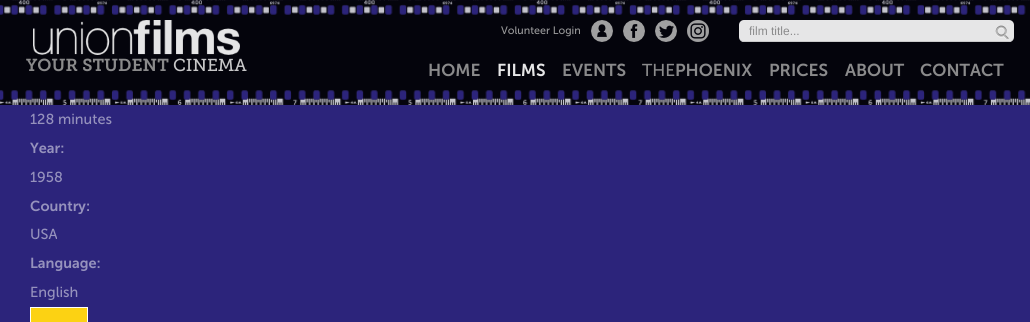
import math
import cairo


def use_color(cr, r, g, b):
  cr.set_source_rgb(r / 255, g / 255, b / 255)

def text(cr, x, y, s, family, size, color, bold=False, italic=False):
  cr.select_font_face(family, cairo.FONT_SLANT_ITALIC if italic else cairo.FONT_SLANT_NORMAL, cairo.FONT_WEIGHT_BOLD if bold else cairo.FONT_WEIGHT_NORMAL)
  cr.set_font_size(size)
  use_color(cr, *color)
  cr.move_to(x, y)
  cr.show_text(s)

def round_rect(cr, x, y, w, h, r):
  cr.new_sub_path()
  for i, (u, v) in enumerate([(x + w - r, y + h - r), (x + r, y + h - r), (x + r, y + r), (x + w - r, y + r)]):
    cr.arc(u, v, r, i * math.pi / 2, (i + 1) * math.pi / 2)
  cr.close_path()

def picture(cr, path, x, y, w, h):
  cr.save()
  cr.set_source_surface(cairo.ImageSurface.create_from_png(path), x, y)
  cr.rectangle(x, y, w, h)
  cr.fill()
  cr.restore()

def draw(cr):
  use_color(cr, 44, 36, 123)
  cr.paint()
  picture(cr, "img_01.png", 0, 0, 1030, 105)
  picture(cr, "img_02.png", 591, 20, 22, 22)
  picture(cr, "img_03.png", 623, 20, 22, 22)
  picture(cr, "img_04.png", 655, 20, 22, 22)
  picture(cr, "img_05.png", 687, 20, 22, 22)
  use_color(cr, 230, 230, 231)
  round_rect(cr, 739, 20, 275, 22, 5)
  cr.fill()
  use_color(cr, 202, 202, 203)
  cr.new_path()
  cr.move_to(739, 36)
  cr.curve_to(739, 39, 741, 42, 744, 42)
  cr.line_to(1009, 42)
  cr.curve_to(1012, 42, 1014, 39, 1014, 36)
  cr.curve_to(1014, 39, 1012, 41, 1009, 41)
  cr.line_to(744, 41)
  cr.curve_to(741, 41, 739, 39, 739, 36)
  cr.close_path()
  cr.fill()
  picture(cr, "img_06.png", 995, 24, 14, 15)
  picture(cr, "img_07.png", 33, 20, 207, 35)
  use_color(cr, 252, 210, 19)
  cr.rectangle(30.5, 307.5, 57, 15)
  cr.fill_preserve()
  use_color(cr, 255, 255, 255)
  cr.set_line_width(1)
  cr.stroke()
  text(cr, 501, 34, "Volunteer Login", "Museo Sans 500", 10.75, (153, 153, 154))
  text(cr, 749, 35, "film title...", "Liberation Sans", 12, (138, 138, 139))
  text(cr, 26, 71, "YOUR STUDENT", "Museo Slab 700 SemiBold", 17.25, (138, 138, 139))
  text(cr, 173, 71, "CINEMA", "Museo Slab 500", 17.25, (199, 199, 200))
  text(cr, 428, 76, "HOME", "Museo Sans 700 SemiBold", 17.25, (138, 138, 139))
  text(cr, 497, 76, "FILMS", "Museo Sans 700 SemiBold", 17.25, (230, 230, 231))
  text(cr, 562, 76, "EVENTS", "Museo Sans 700 SemiBold", 17.25, (138, 138, 139))
  text(cr, 642, 76, "THE", "Museo Sans 500", 17.25, (138, 138, 139))
  text(cr, 675, 76, "PHOENIX", "Museo Sans 700 SemiBold", 17.25, (138, 138, 139))
  text(cr, 769, 76, "PRICES", "Museo Sans 700 SemiBold", 17.25, (138, 138, 139))
  text(cr, 845, 76, "ABOUT", "Museo Sans 700 SemiBold", 17.25, (138, 138, 139))
  text(cr, 920, 76, "CONTACT", "Museo Sans 700 SemiBold", 17.25, (138, 138, 139))
  text(cr, 30, 124, "128 minutes", "Museo Sans 500", 14.5, (150, 146, 189))
  text(cr, 30, 153, "Year:", "Museo Sans 700 SemiBold", 14.5, (150, 146, 189))
  text(cr, 30, 182, "1958", "Museo Sans 500", 14.5, (150, 146, 189))
  text(cr, 30, 211, "Country:", "Museo Sans 700 SemiBold", 14.5, (150, 146, 189))
  text(cr, 30, 239, "USA", "Museo Sans 500", 14.5, (150, 146, 189))
  text(cr, 30, 268, "Language:", "Museo Sans 700 SemiBold", 14.5, (150, 146, 189))
  text(cr, 30, 297, "English", "Museo Sans 500", 14.5, (150, 146, 189))


surface = cairo.ImageSurface(cairo.FORMAT_RGB24, 1030, 322)
cr = cairo.Context(surface)
options = cairo.FontOptions()
options.set_hint_metrics(cairo.HINT_METRICS_OFF)
options.set_hint_style(cairo.HINT_STYLE_NONE)
cr.set_font_options(options)
cr.set_miter_limit(4)
draw(cr)
surface.write_to_png("out.png")
